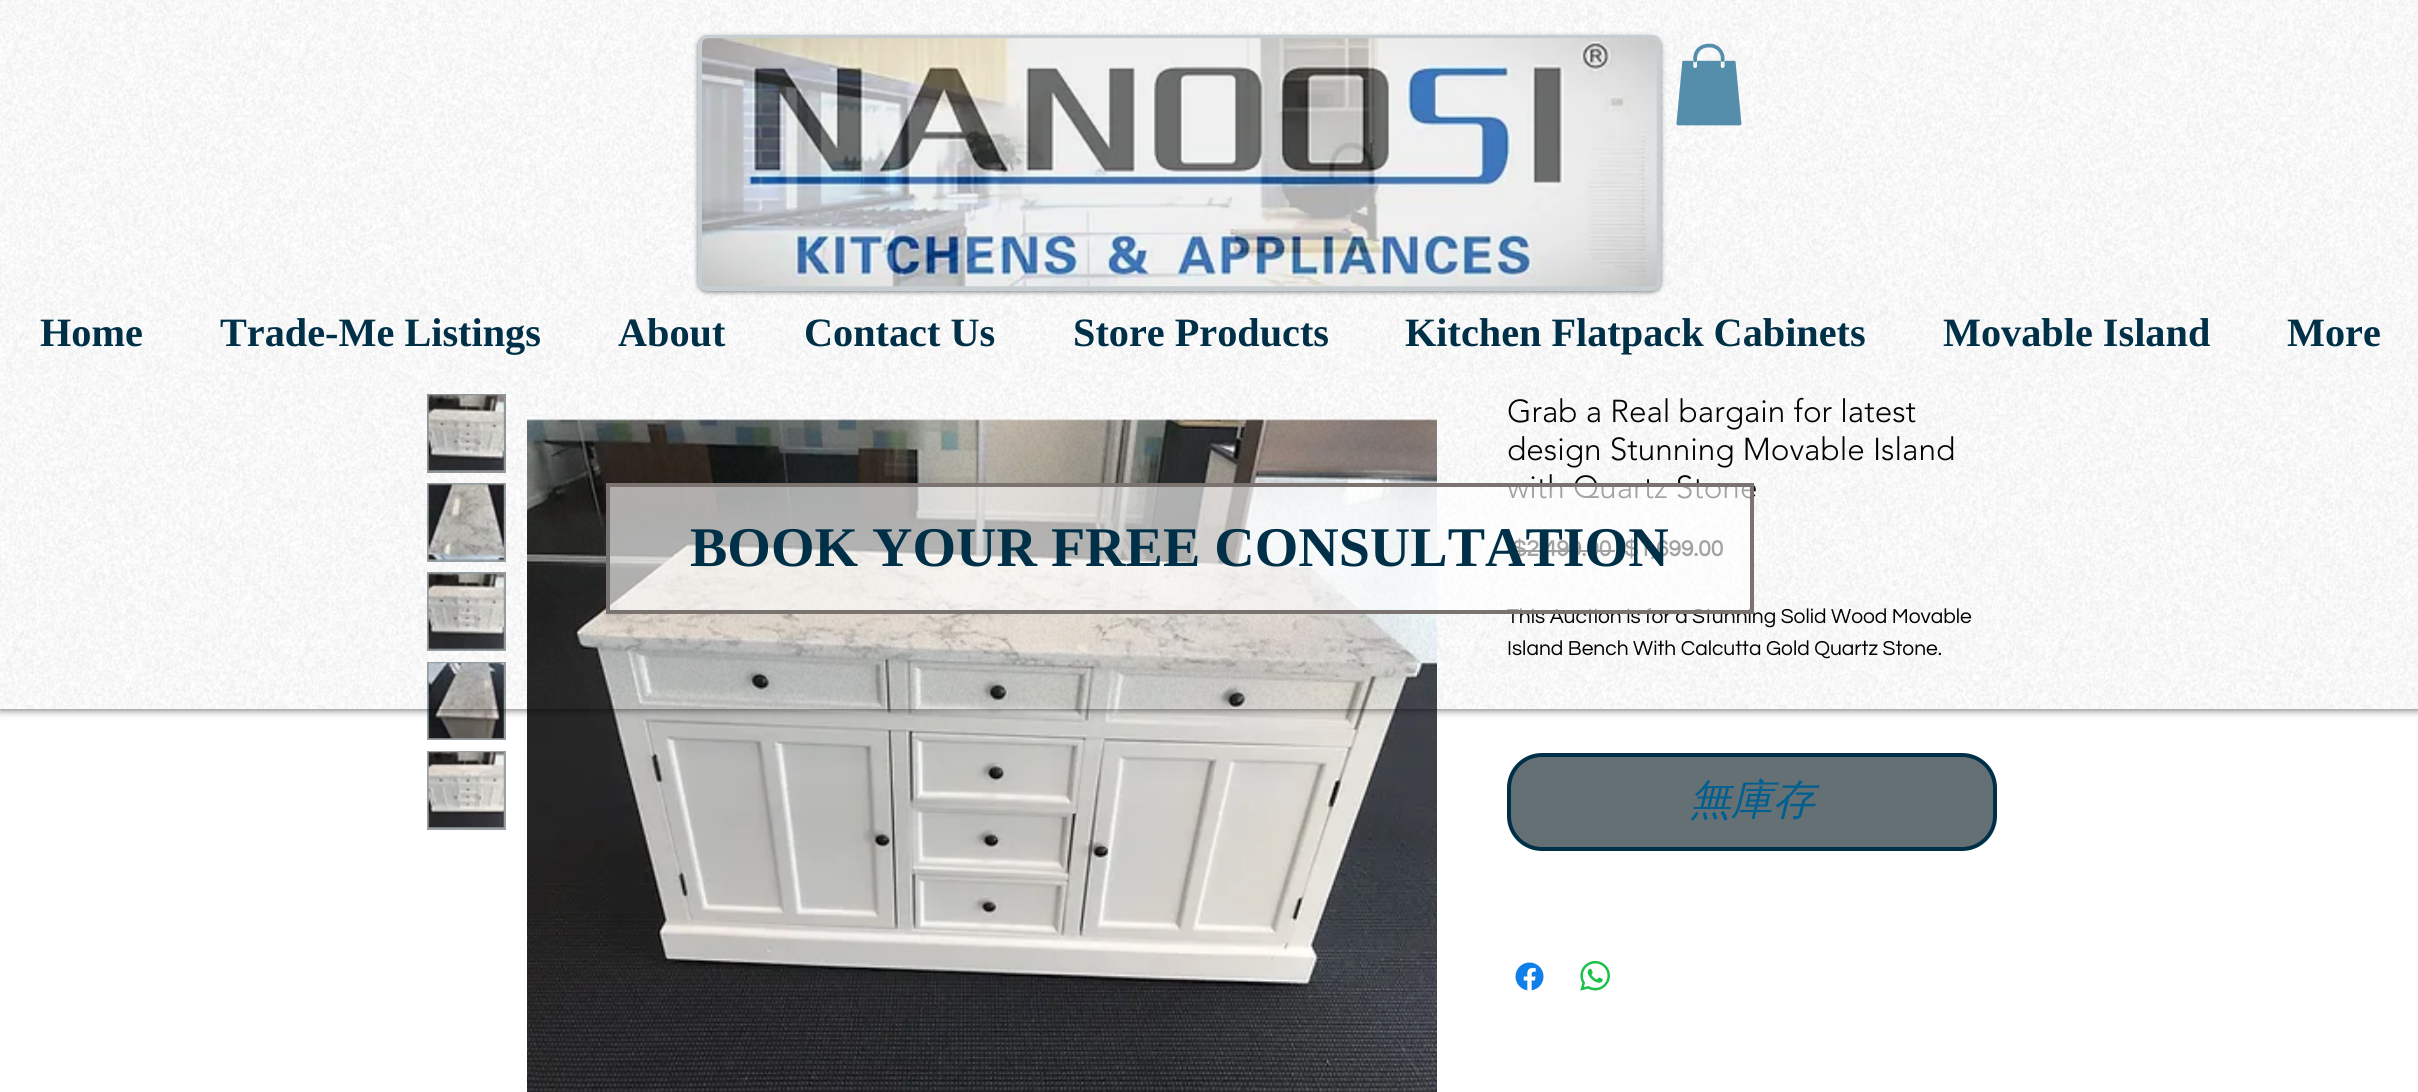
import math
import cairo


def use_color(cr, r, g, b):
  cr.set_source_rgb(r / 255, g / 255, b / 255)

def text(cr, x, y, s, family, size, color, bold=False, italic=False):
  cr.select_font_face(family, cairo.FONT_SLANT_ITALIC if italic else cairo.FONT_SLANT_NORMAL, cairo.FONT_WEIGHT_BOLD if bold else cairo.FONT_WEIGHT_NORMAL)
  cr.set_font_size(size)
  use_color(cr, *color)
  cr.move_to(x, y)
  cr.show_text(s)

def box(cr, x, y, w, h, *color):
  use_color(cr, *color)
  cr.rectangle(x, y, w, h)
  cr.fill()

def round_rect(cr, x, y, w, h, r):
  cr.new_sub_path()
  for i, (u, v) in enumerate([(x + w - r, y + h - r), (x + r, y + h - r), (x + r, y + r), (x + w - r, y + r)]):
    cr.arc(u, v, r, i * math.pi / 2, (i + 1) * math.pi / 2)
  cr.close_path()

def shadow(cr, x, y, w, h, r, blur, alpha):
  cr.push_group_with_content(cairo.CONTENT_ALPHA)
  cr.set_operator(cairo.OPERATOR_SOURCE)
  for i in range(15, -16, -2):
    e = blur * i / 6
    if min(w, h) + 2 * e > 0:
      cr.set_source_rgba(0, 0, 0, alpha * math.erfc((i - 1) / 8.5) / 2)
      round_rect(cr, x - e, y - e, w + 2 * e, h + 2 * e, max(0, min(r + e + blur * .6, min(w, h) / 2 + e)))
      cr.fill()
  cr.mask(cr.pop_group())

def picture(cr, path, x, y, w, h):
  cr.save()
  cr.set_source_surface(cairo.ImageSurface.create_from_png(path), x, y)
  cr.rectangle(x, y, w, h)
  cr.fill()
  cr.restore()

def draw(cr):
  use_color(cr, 255, 255, 255)
  cr.paint()
  use_color(cr, 152, 160, 163)
  cr.rectangle(428, 395, 77, 77)
  cr.fill_preserve()
  use_color(cr, 144, 152, 155)
  cr.stroke()
  picture(cr, "img_04.png", 428, 395, 77, 76)
  box(cr, 427, 483, 79, 79, 152, 160, 163)
  picture(cr, "img_05.png", 428, 484, 77, 77)
  box(cr, 427, 572, 79, 79, 152, 160, 163)
  picture(cr, "img_06.png", 428, 573, 77, 77)
  box(cr, 427, 662, 79, 78, 152, 160, 163)
  picture(cr, "img_07.png", 428, 662, 77, 77)
  picture(cr, "img_09.png", 527, 419, 910, 673)
  box(cr, 1507, 550, 108, 2, 0, 0, 0)
  cr.save()
  cr.set_fill_rule(cairo.FILL_RULE_EVEN_ODD)
  cr.new_path()
  cr.move_to(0, 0)
  cr.line_to(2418, 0)
  cr.line_to(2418, 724)
  cr.line_to(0, 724)
  cr.close_path()
  cr.move_to(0, 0)
  cr.line_to(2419, 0)
  cr.line_to(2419, 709)
  cr.line_to(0, 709)
  cr.close_path()
  cr.clip()
  use_color(cr, 0, 0, 0)
  shadow(cr, 0, 0, 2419, 709, 0, 4.5, 0.7)
  cr.restore()
  box(cr, 427, 751, 79, 79, 152, 160, 163)
  picture(cr, "img_08.png", 428, 752, 77, 76)
  use_color(cr, 101, 112, 117)
  round_rect(cr, 1509, 755, 486, 94, 33)
  cr.fill_preserve()
  use_color(cr, 0, 48, 71)
  cr.set_line_width(4)
  cr.stroke()
  picture(cr, "img_10.png", 1515, 962, 29, 29)
  picture(cr, "img_11.png", 1580, 960, 30, 31)
  text(cr, 1507, 422, "Grab a Real bargain for latest", "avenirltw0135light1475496 Light", 31.5, (0, 0, 0))
  text(cr, 1507, 460, "design Stunning Movable Island", "avenirltw0135light1475496 Light", 31.5, (0, 0, 0))
  text(cr, 1507, 498, "with Quartz Stone", "avenirltw0135light1475496 Light", 31.5, (0, 0, 0))
  text(cr, 1512, 556, "$2,499.00", "Questrial", 22.75, (0, 0, 0), bold=True)
  text(cr, 1624, 556, "$1,699.00", "Questrial", 22.75, (0, 0, 0), bold=True)
  text(cr, 1507, 623, "This Auction is for a Stunning Solid Wood Movable", "Questrial", 21, (0, 0, 0))
  text(cr, 1507, 655, "Island Bench With Calcutta Gold Quartz Stone.", "Questrial", 21, (0, 0, 0))
  picture(cr, "img_01.png", 0, 0, 2418, 709)
  cr.set_source_rgba(1, 1, 1, 0.63)
  cr.rectangle(608, 485, 1144, 127)
  cr.fill_preserve()
  use_color(cr, 123, 115, 111)
  cr.stroke()
  text(cr, 690, 566, "BOOK YOUR FREE CONSULTATION", "Liberation Serif", 56, (0, 48, 71), bold=True)
  text(cr, 2287, 346, "More", "Liberation Serif", 40.25, (0, 48, 71), bold=True)
  text(cr, 1943, 346, "Movable Island", "Liberation Serif", 40.25, (0, 48, 71), bold=True)
  text(cr, 1405, 346, "Kitchen Flatpack Cabinets", "Liberation Serif", 40.25, (0, 48, 71), bold=True)
  text(cr, 1073, 346, "Store Products", "Liberation Serif", 40.25, (0, 48, 71), bold=True)
  text(cr, 804, 346, "Contact Us", "Liberation Serif", 40.25, (0, 48, 71), bold=True)
  text(cr, 618, 346, "About", "Liberation Serif", 40.25, (0, 48, 71), bold=True)
  text(cr, 220, 346, "Trade-Me Listings", "Liberation Serif", 40.25, (0, 48, 71), bold=True)
  text(cr, 40, 346, "Home", "Liberation Serif", 40.25, (0, 48, 71), bold=True)
  picture(cr, "img_03.png", 1676, 43, 66, 83)
  use_color(cr, 0, 0, 0)
  shadow(cr, 698, 37, 963, 255, 9, 2.5, 0.5)
  use_color(cr, 199, 206, 209)
  round_rect(cr, 700, 37, 959, 252, 7)
  cr.fill_preserve()
  cr.stroke()
  picture(cr, "img_02.png", 702, 38, 955, 249)
  text(cr, 1689, 814, "無庫存", "WenQuanYi Zen Hei Medium", 42, (0, 95, 143), italic=True)


surface = cairo.ImageSurface(cairo.FORMAT_RGB24, 2418, 1092)
cr = cairo.Context(surface)
options = cairo.FontOptions()
options.set_hint_metrics(cairo.HINT_METRICS_OFF)
options.set_hint_style(cairo.HINT_STYLE_NONE)
cr.set_font_options(options)
cr.set_miter_limit(4)
draw(cr)
surface.write_to_png("out.png")
